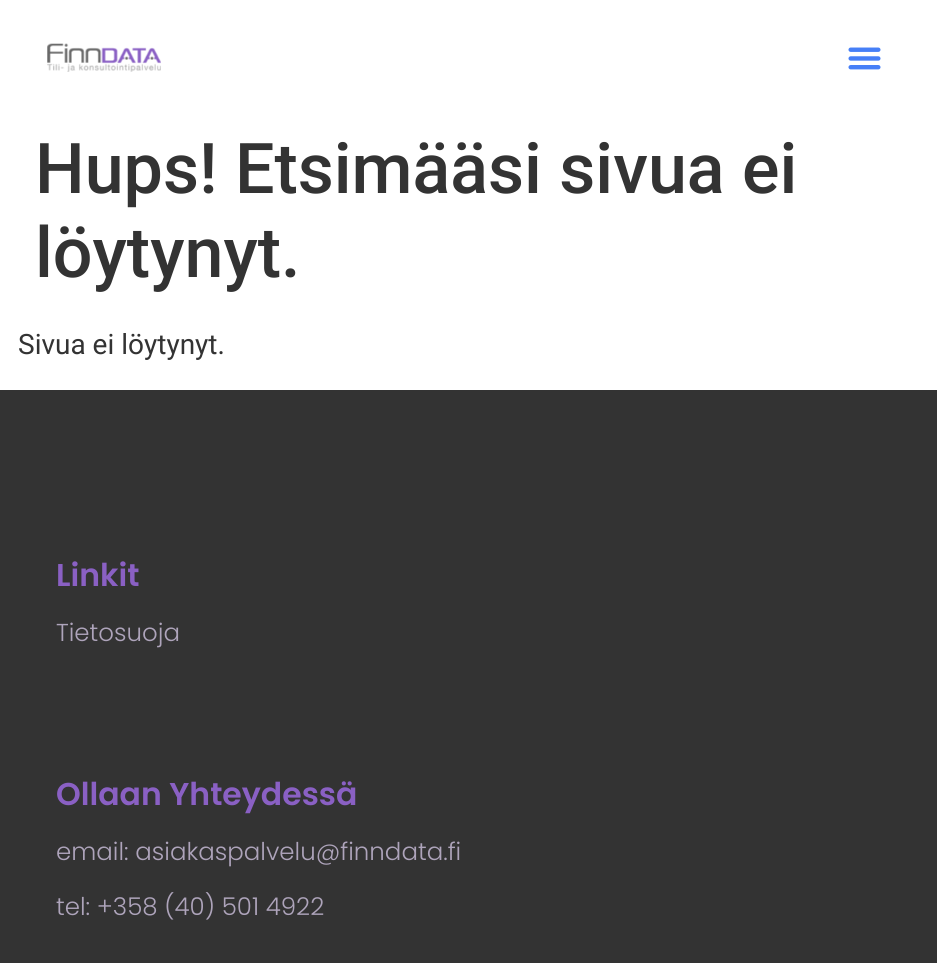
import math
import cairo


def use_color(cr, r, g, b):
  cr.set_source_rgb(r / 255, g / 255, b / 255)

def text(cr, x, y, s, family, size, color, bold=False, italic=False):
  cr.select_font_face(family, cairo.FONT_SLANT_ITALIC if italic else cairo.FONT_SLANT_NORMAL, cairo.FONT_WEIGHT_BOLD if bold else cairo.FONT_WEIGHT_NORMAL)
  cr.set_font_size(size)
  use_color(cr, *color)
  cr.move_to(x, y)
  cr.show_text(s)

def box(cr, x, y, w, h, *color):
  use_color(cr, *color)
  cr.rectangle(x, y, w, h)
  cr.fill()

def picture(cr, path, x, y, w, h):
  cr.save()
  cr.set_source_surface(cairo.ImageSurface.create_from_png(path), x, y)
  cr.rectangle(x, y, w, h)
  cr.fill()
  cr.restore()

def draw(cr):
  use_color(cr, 255, 255, 255)
  cr.paint()
  picture(cr, "img_01.png", 47, 43, 114, 29)
  picture(cr, "img_02.png", 848, 47, 33, 23)
  box(cr, 0, 390, 937, 573, 51, 51, 51)
  text(cr, 35, 193, "Hups! Etsimääsi sivua ei", "Roboto Medium", 70, (51, 51, 51))
  text(cr, 35, 277, "löytynyt.", "Roboto Medium", 70, (51, 51, 51))
  text(cr, 18, 354, "Sivua ei löytynyt.", "Roboto", 28, (51, 51, 51))
  text(cr, 56, 586, "Linkit", "Poppins SemiBold", 31.5, (138, 96, 196))
  text(cr, 56, 641, "Tietosuoja", "Poppins Light", 24.5, (174, 164, 187))
  text(cr, 56, 805, "Ollaan Yhteydessä", "Poppins SemiBold", 31.5, (138, 96, 196))
  text(cr, 56, 860, "email: asiakaspalvelu@finndata.fi", "Poppins Light", 24.5, (174, 164, 187))
  text(cr, 56, 915, "tel: +358 (40) 501 4922", "Poppins Light", 24.5, (174, 164, 187))


surface = cairo.ImageSurface(cairo.FORMAT_RGB24, 937, 963)
cr = cairo.Context(surface)
options = cairo.FontOptions()
options.set_hint_metrics(cairo.HINT_METRICS_OFF)
options.set_hint_style(cairo.HINT_STYLE_NONE)
cr.set_font_options(options)
cr.set_miter_limit(4)
draw(cr)
surface.write_to_png("out.png")
